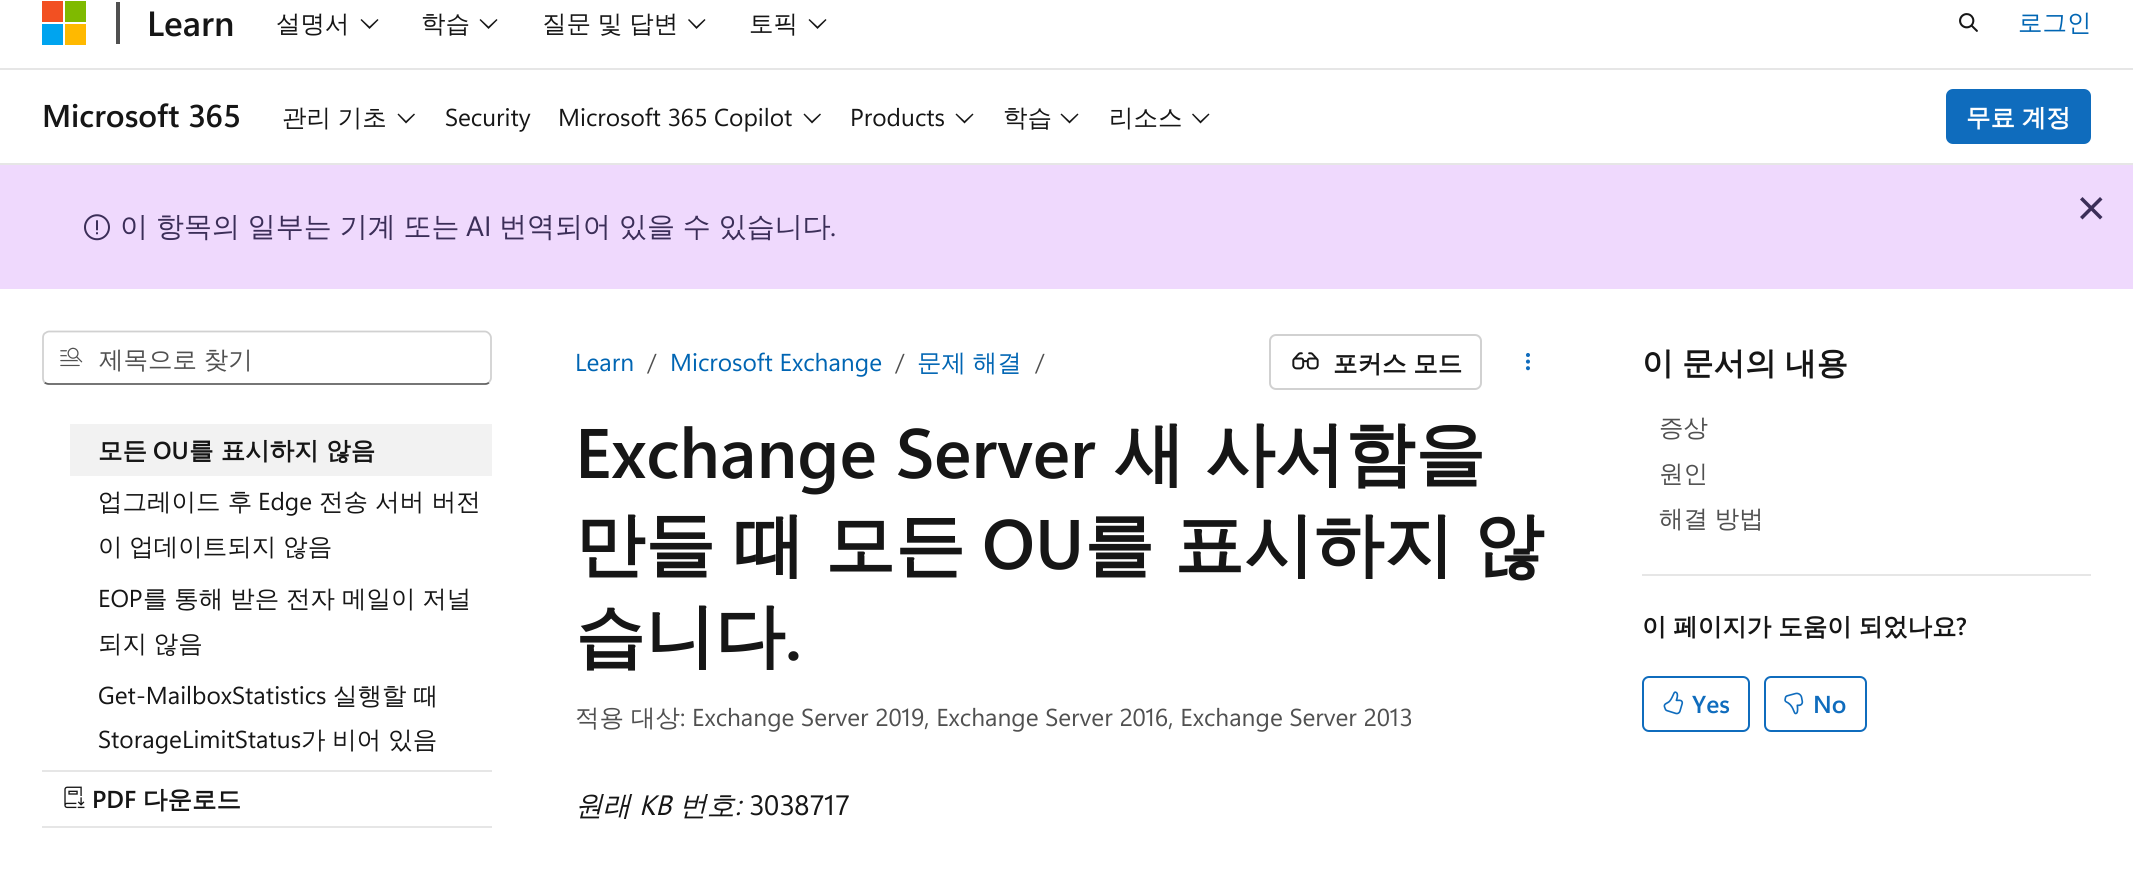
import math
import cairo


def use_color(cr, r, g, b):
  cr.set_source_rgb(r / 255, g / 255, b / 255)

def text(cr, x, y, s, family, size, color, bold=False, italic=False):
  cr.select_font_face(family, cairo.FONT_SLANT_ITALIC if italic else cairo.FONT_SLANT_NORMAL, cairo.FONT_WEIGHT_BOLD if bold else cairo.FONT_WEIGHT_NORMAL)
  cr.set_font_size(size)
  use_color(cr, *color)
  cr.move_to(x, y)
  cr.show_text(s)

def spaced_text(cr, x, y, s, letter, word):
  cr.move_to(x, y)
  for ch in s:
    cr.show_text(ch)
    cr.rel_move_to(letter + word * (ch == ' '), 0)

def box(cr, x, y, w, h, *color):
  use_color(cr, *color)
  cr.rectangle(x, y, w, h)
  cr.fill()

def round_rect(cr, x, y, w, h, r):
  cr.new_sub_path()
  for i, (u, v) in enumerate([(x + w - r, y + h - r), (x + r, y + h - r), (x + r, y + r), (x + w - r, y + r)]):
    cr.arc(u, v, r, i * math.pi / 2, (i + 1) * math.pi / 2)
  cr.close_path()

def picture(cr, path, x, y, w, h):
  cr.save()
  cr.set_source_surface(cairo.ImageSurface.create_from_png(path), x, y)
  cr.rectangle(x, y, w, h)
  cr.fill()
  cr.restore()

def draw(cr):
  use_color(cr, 255, 255, 255)
  cr.paint()
  box(cr, 0, 68, 2133, 2, 230, 230, 230)
  box(cr, 42, 1, 21, 21, 242, 80, 34)
  box(cr, 65, 1, 21, 21, 127, 186, 0)
  box(cr, 42, 24, 21, 21, 0, 164, 239)
  box(cr, 65, 24, 21, 21, 255, 185, 0)
  box(cr, 116, 2, 4, 42, 80, 80, 80)
  use_color(cr, 22, 22, 22)
  cr.new_path()
  cr.move_to(369.5, 29)
  cr.line_to(360.5, 20)
  cr.line_to(361.5, 19)
  cr.line_to(369.5, 26.5)
  cr.line_to(377.5, 19)
  cr.line_to(378.5, 20)
  cr.close_path()
  cr.fill()
  cr.new_path()
  cr.move_to(488.5, 29)
  cr.line_to(479.5, 20)
  cr.line_to(480.5, 19)
  cr.line_to(488.5, 26.5)
  cr.line_to(496.5, 19)
  cr.line_to(497.5, 20)
  cr.close_path()
  cr.fill()
  cr.new_path()
  cr.move_to(696.5, 29)
  cr.line_to(688, 20)
  cr.line_to(689, 19)
  cr.line_to(696.5, 26.5)
  cr.line_to(704.5, 19)
  cr.line_to(705.5, 20)
  cr.close_path()
  cr.fill()
  cr.new_path()
  cr.move_to(817.5, 29)
  cr.line_to(808.5, 20)
  cr.line_to(809.5, 19)
  cr.line_to(817.5, 26.5)
  cr.line_to(825.5, 19)
  cr.line_to(826.5, 20)
  cr.close_path()
  cr.fill()
  picture(cr, "img_01.png", 1959, 13, 19, 19)
  box(cr, 0, 163, 2133, 2, 230, 230, 230)
  use_color(cr, 22, 22, 22)
  cr.new_path()
  cr.move_to(406, 123.5)
  cr.line_to(397.5, 114.5)
  cr.line_to(398.5, 113.5)
  cr.line_to(406, 121)
  cr.line_to(414, 113.5)
  cr.line_to(415, 114.5)
  cr.close_path()
  cr.fill()
  cr.new_path()
  cr.move_to(812, 123.5)
  cr.line_to(803.5, 114.5)
  cr.line_to(804.5, 113.5)
  cr.line_to(812, 121)
  cr.line_to(820, 113.5)
  cr.line_to(821, 114.5)
  cr.close_path()
  cr.fill()
  cr.new_path()
  cr.move_to(964.5, 123.5)
  cr.line_to(955.5, 114.5)
  cr.line_to(956.5, 113.5)
  cr.line_to(964.5, 121)
  cr.line_to(972.5, 113.5)
  cr.line_to(973.5, 114.5)
  cr.close_path()
  cr.fill()
  cr.new_path()
  cr.move_to(1069.5, 123.5)
  cr.line_to(1060.5, 114.5)
  cr.line_to(1061.5, 113.5)
  cr.line_to(1069.5, 121)
  cr.line_to(1077.5, 113.5)
  cr.line_to(1078.5, 114.5)
  cr.close_path()
  cr.fill()
  cr.new_path()
  cr.move_to(1200.5, 123.5)
  cr.line_to(1192, 114.5)
  cr.line_to(1193, 113.5)
  cr.line_to(1200.5, 121)
  cr.line_to(1208.5, 113.5)
  cr.line_to(1209.5, 114.5)
  cr.close_path()
  cr.fill()
  use_color(cr, 15, 108, 189)
  round_rect(cr, 1947, 90, 143, 53, 6)
  cr.fill_preserve()
  cr.stroke()
  box(cr, 0, 165, 2133, 124, 239, 217, 253)
  use_color(cr, 59, 46, 88)
  cr.new_path()
  cr.move_to(2082.5, 197)
  cr.line_to(2102.5, 217)
  cr.line_to(2100, 219.5)
  cr.line_to(2080, 199.5)
  cr.close_path()
  cr.fill()
  cr.new_path()
  cr.move_to(2100, 197)
  cr.line_to(2102.5, 199.5)
  cr.line_to(2082.5, 219.5)
  cr.line_to(2080, 217)
  cr.close_path()
  cr.fill()
  picture(cr, "img_02.png", 84, 214, 26, 27)
  cr.new_path()
  cr.move_to(489, 382.5)
  cr.curve_to(488, 383.5, 486.5, 384, 485, 384)
  cr.line_to(49, 384)
  cr.curve_to(47.5, 384, 46, 383.5, 44.5, 382.5)
  use_color(cr, 97, 97, 97)
  cr.set_line_width(1.8)
  cr.stroke()
  cr.new_path()
  cr.move_to(44.5, 382.5)
  cr.curve_to(43.5, 381, 43, 379.5, 43, 378)
  cr.line_to(43, 338)
  cr.curve_to(43, 336, 43.5, 334.5, 44.5, 333.5)
  cr.curve_to(46, 332.5, 47.5, 331.5, 49, 331.5)
  cr.line_to(485, 331.5)
  cr.curve_to(486.5, 331.5, 488, 332.5, 489, 333.5)
  cr.curve_to(490, 334.5, 491, 336, 491, 338)
  cr.line_to(491, 378)
  cr.curve_to(491, 379.5, 490, 381, 489, 382.5)
  use_color(cr, 209, 209, 209)
  cr.stroke()
  picture(cr, "img_03.png", 60, 347, 23, 20)
  box(cr, 70, 424, 422, 52, 242, 242, 242)
  box(cr, 42, 770, 450, 2, 230, 230, 230)
  box(cr, 42, 826, 450, 2, 230, 230, 230)
  picture(cr, "img_04.png", 64, 786, 21, 23)
  round_rect(cr, 1270, 335, 211, 54, 6)
  use_color(cr, 209, 209, 209)
  cr.set_line_width(2)
  cr.stroke()
  picture(cr, "img_05.png", 1292, 352, 27, 18)
  picture(cr, "img_06.png", 1525, 353, 5, 18)
  box(cr, 1642, 574, 449, 2, 230, 230, 230)
  round_rect(cr, 1643, 677, 106, 54, 6)
  use_color(cr, 15, 108, 189)
  cr.stroke()
  picture(cr, "img_07.png", 1663, 691, 21, 24)
  round_rect(cr, 1765, 677, 101, 54, 6)
  cr.stroke()
  picture(cr, "img_08.png", 1784, 692, 20, 23)
  text(cr, 147, 36, "Learn", "Segoe UI SemiBold", 35, (22, 22, 22))
  text(cr, 276, 32, "설명서", "WenQuanYi Zen Hei Medium", 24.5, (22, 22, 22))
  text(cr, 421, 32, "학습", "WenQuanYi Zen Hei Medium", 24.5, (22, 22, 22))
  spaced_text(cr, 542, 32, "질문 및 답변", 0, -0.5)
  text(cr, 749, 32, "토픽", "WenQuanYi Zen Hei Medium", 24.5, (22, 22, 22))
  text(cr, 2018, 31, "로그인", "WenQuanYi Zen Hei Medium", 24.5, (0, 101, 179))
  text(cr, 42, 127, "Microsoft 365", "Segoe UI SemiBold", 31.5, (22, 22, 22))
  cr.select_font_face("WenQuanYi Zen Hei Medium")
  cr.set_font_size(24.5)
  spaced_text(cr, 282, 126, "관리 기초", 0, -0.5)
  text(cr, 445, 126, "Security", "Segoe UI", 24.5, (22, 22, 22))
  text(cr, 558, 126, "Microsoft 365 Copilot", "Segoe UI", 24.5, (22, 22, 22))
  text(cr, 850, 126, "Products", "Segoe UI", 24.5, (22, 22, 22))
  text(cr, 1003, 126, "학습", "WenQuanYi Zen Hei Medium", 24.5, (22, 22, 22))
  text(cr, 1109, 126, "리소스", "WenQuanYi Zen Hei Medium", 24.5, (22, 22, 22))
  cr.select_font_face("WenQuanYi Zen Hei", cairo.FONT_SLANT_NORMAL, cairo.FONT_WEIGHT_BOLD)
  use_color(cr, 255, 255, 255)
  spaced_text(cr, 1966, 126, "무료 계정", 0, -0.5)
  cr.select_font_face("WenQuanYi Zen Hei Medium")
  cr.set_font_size(28)
  use_color(cr, 59, 46, 88)
  spaced_text(cr, 120, 236, "이 항목의 일부는 기계 또는", 0, -0.5)
  text(cr, 466, 236, "AI", "Segoe UI", 28, (59, 46, 88))
  cr.select_font_face("WenQuanYi Zen Hei Medium")
  spaced_text(cr, 499, 236, "번역되어 있을 수 있습니다", 0, -0.5)
  text(cr, 830, 236, ".", "Segoe UI", 28, (59, 46, 88))
  cr.select_font_face("WenQuanYi Zen Hei Medium")
  cr.set_font_size(24.5)
  use_color(cr, 80, 80, 80)
  spaced_text(cr, 99, 368, "제목으로 찾기", 0, -0.5)
  text(cr, 98, 459, "모든", "WenQuanYi Zen Hei", 24.5, (22, 22, 22), bold=True)
  text(cr, 153, 459, "OU", "Segoe UI SemiBold", 24.5, (22, 22, 22))
  text(cr, 189, 459, "를 표시하지 않음", "WenQuanYi Zen Hei", 24.5, (22, 22, 22), bold=True)
  text(cr, 98, 510, "업그레이드 후", "WenQuanYi Zen Hei Medium", 24.5, (22, 22, 22))
  text(cr, 258, 510, "Edge", "Segoe UI", 24.5, (22, 22, 22))
  text(cr, 319, 510, "전송 서버 버전", "WenQuanYi Zen Hei Medium", 24.5, (22, 22, 22))
  spaced_text(cr, 98, 555, "이 업데이트되지 않음", 0, -0.5)
  text(cr, 98, 607, "EOP", "Segoe UI", 24.5, (22, 22, 22))
  cr.select_font_face("WenQuanYi Zen Hei Medium")
  spaced_text(cr, 143, 607, "를 통해 받은 전자 메일이 저널", 0, -0.5)
  spaced_text(cr, 98, 652, "되지 않음", 0, -0.5)
  text(cr, 98, 704, "Get-MailboxStatistics", "Segoe UI", 24.5, (22, 22, 22))
  text(cr, 333, 704, "실행할 때", "WenQuanYi Zen Hei Medium", 24.5, (22, 22, 22))
  text(cr, 98, 748, "StorageLimitStatus", "Segoe UI", 24.5, (22, 22, 22))
  cr.select_font_face("WenQuanYi Zen Hei Medium")
  spaced_text(cr, 301, 748, "가 비어 있음", 0, -0.5)
  text(cr, 92, 808, "PDF", "Segoe UI SemiBold", 24.5, (22, 22, 22))
  text(cr, 143, 808, "다운로드", "WenQuanYi Zen Hei", 24.5, (22, 22, 22), bold=True)
  text(cr, 575, 371, "Learn", "Segoe UI", 24.5, (0, 101, 179))
  text(cr, 647, 371, "/", "Segoe UI", 24.5, (80, 80, 80))
  text(cr, 670, 371, "Microsoft Exchange", "Segoe UI", 24.5, (0, 101, 179))
  text(cr, 895, 371, "/", "Segoe UI", 24.5, (80, 80, 80))
  cr.select_font_face("WenQuanYi Zen Hei Medium")
  use_color(cr, 0, 101, 179)
  spaced_text(cr, 917, 371, "문제 해결", 0, -0.5)
  text(cr, 1035, 371, "/", "Segoe UI", 24.5, (80, 80, 80))
  cr.select_font_face("WenQuanYi Zen Hei", cairo.FONT_SLANT_NORMAL, cairo.FONT_WEIGHT_BOLD)
  use_color(cr, 22, 22, 22)
  spaced_text(cr, 1333, 372, "포커스 모드", 0, -0.5)
  text(cr, 575, 478, "Exchange Server", "Segoe UI SemiBold", 70, (22, 22, 22))
  text(cr, 1115, 478, "새", "WenQuanYi Zen Hei", 70, (22, 22, 22), bold=True)
  text(cr, 1205, 478, "사서함을", "WenQuanYi Zen Hei", 70, (22, 22, 22), bold=True)
  spaced_text(cr, 575, 569, "만들 때 모든", 0, -1)
  text(cr, 982, 569, "OU", "Segoe UI SemiBold", 70, (22, 22, 22))
  cr.select_font_face("WenQuanYi Zen Hei", cairo.FONT_SLANT_NORMAL, cairo.FONT_WEIGHT_BOLD)
  spaced_text(cr, 1084, 569, "를 표시하지 않", 0, -1)
  text(cr, 575, 660, "습니다", "WenQuanYi Zen Hei", 70, (22, 22, 22), bold=True)
  text(cr, 785, 660, ".", "Segoe UI SemiBold", 70, (22, 22, 22))
  text(cr, 575, 726, "적용", "WenQuanYi Zen Hei Medium", 24.5, (80, 80, 80))
  text(cr, 631, 726, "대상", "WenQuanYi Zen Hei Medium", 24.5, (80, 80, 80))
  text(cr, 680, 726, ": Exchange Server 2019, Exchange Server 2016, Exchange Server 2013", "Segoe UI", 24.5, (80, 80, 80))
  text(cr, 575, 815, "원래", "WenQuanYi Zen Hei Medium", 28, (22, 22, 22), italic=True)
  text(cr, 639, 815, "KB", "Segoe UI", 28, (22, 22, 22), italic=True)
  text(cr, 679, 815, "번호", "WenQuanYi Zen Hei Medium", 28, (22, 22, 22), italic=True)
  text(cr, 735, 815, ":", "Segoe UI", 28, (22, 22, 22), italic=True)
  text(cr, 749, 815, "3038717", "Segoe UI", 28, (22, 22, 22))
  cr.select_font_face("WenQuanYi Zen Hei", cairo.FONT_SLANT_NORMAL, cairo.FONT_WEIGHT_BOLD)
  cr.set_font_size(31.5)
  spaced_text(cr, 1642, 374, "이 문서의 내용", 0, -1)
  text(cr, 1659, 436, "증상", "WenQuanYi Zen Hei Medium", 24.5, (80, 80, 80))
  text(cr, 1659, 482, "원인", "WenQuanYi Zen Hei Medium", 24.5, (80, 80, 80))
  spaced_text(cr, 1659, 527, "해결 방법", 0, -0.5)
  cr.select_font_face("WenQuanYi Zen Hei", cairo.FONT_SLANT_NORMAL, cairo.FONT_WEIGHT_BOLD)
  use_color(cr, 22, 22, 22)
  spaced_text(cr, 1642, 635, "이 페이지가 도움이 되었나요", 0, -0.5)
  text(cr, 1956, 635, "?", "Segoe UI SemiBold", 24.5, (22, 22, 22))
  text(cr, 1692, 713, "Yes", "Segoe UI SemiBold", 24.5, (15, 108, 189))
  text(cr, 1813, 713, "No", "Segoe UI SemiBold", 24.5, (15, 108, 189))


surface = cairo.ImageSurface(cairo.FORMAT_RGB24, 2133, 870)
cr = cairo.Context(surface)
options = cairo.FontOptions()
options.set_hint_metrics(cairo.HINT_METRICS_OFF)
options.set_hint_style(cairo.HINT_STYLE_NONE)
cr.set_font_options(options)
cr.set_miter_limit(4)
draw(cr)
surface.write_to_png("out.png")
